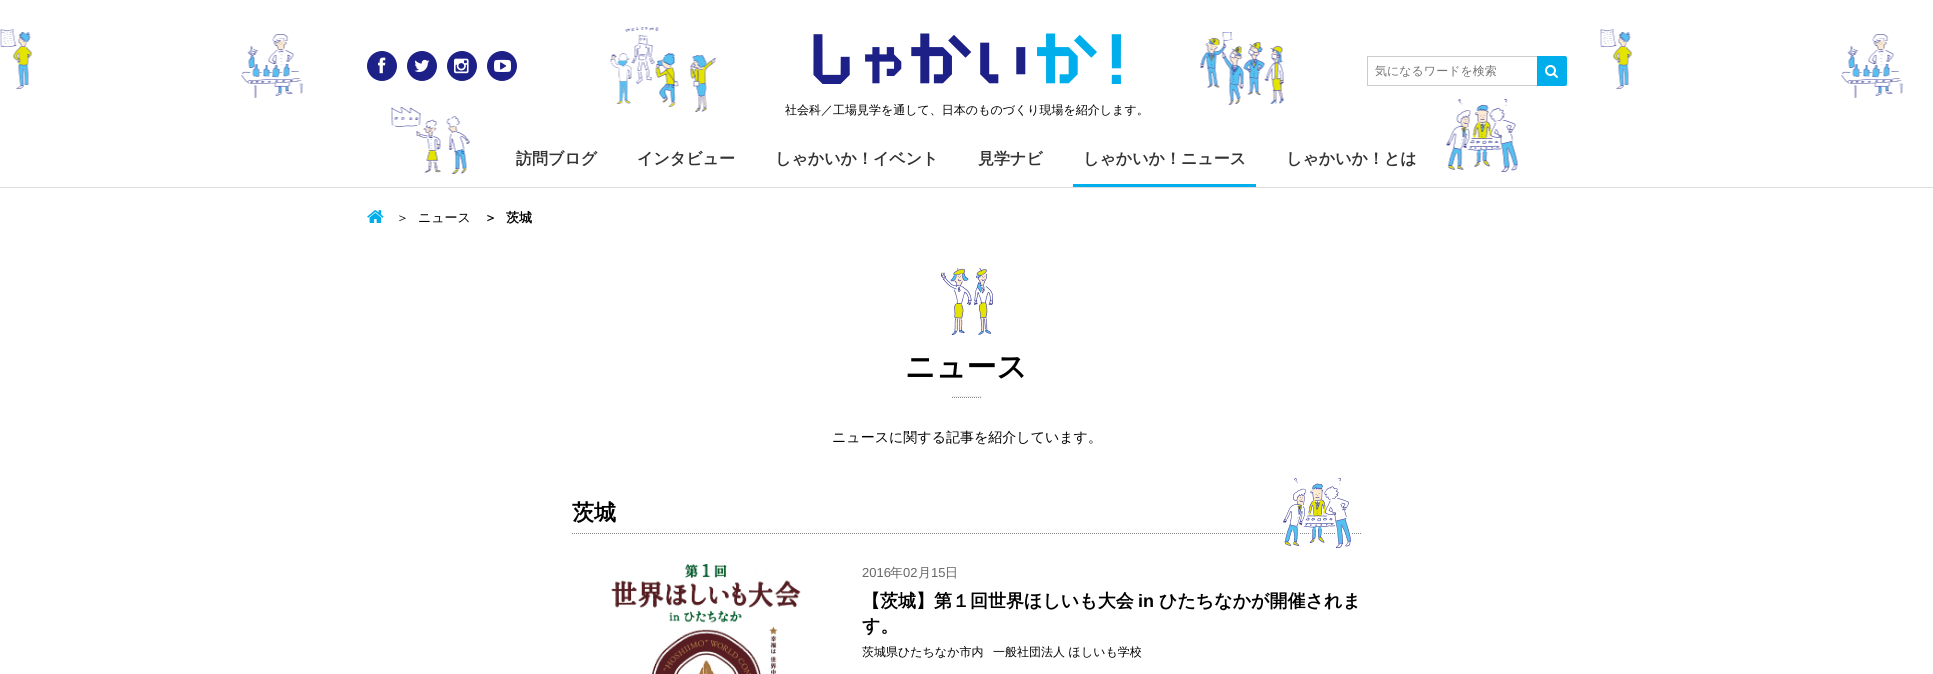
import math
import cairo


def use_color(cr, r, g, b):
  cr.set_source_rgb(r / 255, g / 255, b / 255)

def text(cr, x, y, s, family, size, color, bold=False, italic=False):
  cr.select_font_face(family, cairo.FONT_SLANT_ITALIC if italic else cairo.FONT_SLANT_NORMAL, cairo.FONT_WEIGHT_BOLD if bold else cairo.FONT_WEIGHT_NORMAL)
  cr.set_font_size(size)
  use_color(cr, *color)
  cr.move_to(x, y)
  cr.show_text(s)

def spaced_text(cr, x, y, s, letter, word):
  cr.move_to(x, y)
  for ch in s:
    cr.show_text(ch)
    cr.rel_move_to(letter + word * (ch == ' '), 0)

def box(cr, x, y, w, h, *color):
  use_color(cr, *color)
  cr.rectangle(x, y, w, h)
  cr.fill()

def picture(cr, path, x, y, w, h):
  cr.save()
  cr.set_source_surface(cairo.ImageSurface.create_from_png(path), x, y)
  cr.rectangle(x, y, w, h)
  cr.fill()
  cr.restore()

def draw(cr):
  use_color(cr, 255, 255, 255)
  cr.paint()
  picture(cr, "img_01.png", 0, 27, 1903, 147)
  box(cr, 0, 187, 1933, 1, 221, 221, 221)
  box(cr, 1367, 56, 170, 1, 204, 204, 204)
  box(cr, 1367, 85, 170, 1, 204, 204, 204)
  box(cr, 1367, 56, 1, 30, 204, 204, 204)
  use_color(cr, 0, 174, 235)
  cr.new_path()
  cr.move_to(1537, 56)
  cr.line_to(1565, 56)
  cr.curve_to(1566, 56, 1567, 57, 1567, 58)
  cr.line_to(1567, 84)
  cr.curve_to(1567, 85, 1566, 86, 1565, 86)
  cr.line_to(1537, 86)
  cr.close_path()
  cr.fill()
  picture(cr, "img_02.png", 1545, 65, 13, 13)
  use_color(cr, 29, 32, 135)
  cr.arc(382, 66, 15, 0, 2 * math.pi)
  cr.fill()
  picture(cr, "img_03.png", 378, 57, 8, 17)
  cr.arc(422, 66, 15, 0, 2 * math.pi)
  cr.fill()
  picture(cr, "img_04.png", 414, 59, 16, 13)
  cr.arc(462, 66, 15, 0, 2 * math.pi)
  cr.fill()
  picture(cr, "img_05.png", 454, 58, 15, 16)
  cr.arc(502, 66, 15, 0, 2 * math.pi)
  cr.fill()
  picture(cr, "img_06.png", 494, 59, 17, 13)
  box(cr, 1073, 184, 183, 3, 0, 174, 235)
  picture(cr, "img_07.png", 367, 210, 17, 13)
  picture(cr, "img_08.png", 941, 268, 52, 67)
  box(cr, 952, 396, 30, 1, 238, 238, 238)
  cr.new_path()
  cr.move_to(952, 397.5)
  cr.line_to(982, 397.5)
  use_color(cr, 136, 136, 136)
  cr.set_line_width(1)
  cr.set_dash([1, 1])
  cr.stroke()
  cr.new_path()
  cr.move_to(572, 533.5)
  cr.line_to(1362, 533.5)
  cr.stroke()
  picture(cr, "img_09.png", 1283, 478, 68, 70)
  picture(cr, "img_10.png", 611, 564, 190, 110)
  cr.select_font_face("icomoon")
  cr.set_font_size(60)
  use_color(cr, 29, 32, 135)
  spaced_text(cr, 803, 86, "しゃかい", -3, 0)
  text(cr, 1030, 86, "か！", "icomoon", 60, (0, 174, 235))
  text(cr, 1375, 75, "気になるワードを検索", "WenQuanYi Zen Hei Medium", 12, (117, 117, 117))
  text(cr, 785, 114, "社会科／工場見学を通して、日本のものづくり現場を紹介します。", "WenQuanYi Zen Hei Medium", 12, (0, 0, 0))
  text(cr, 516, 164, "訪問ブログ", "WenQuanYi Zen Hei", 16, (51, 51, 51), bold=True)
  text(cr, 637, 164, "インタビュー", "WenQuanYi Zen Hei", 16, (51, 51, 51), bold=True)
  text(cr, 775, 164, "しゃかいか！イベント", "WenQuanYi Zen Hei", 16, (51, 51, 51), bold=True)
  text(cr, 978, 164, "見学ナビ", "WenQuanYi Zen Hei", 16, (51, 51, 51), bold=True)
  text(cr, 1083, 164, "しゃかいか！ニュース", "WenQuanYi Zen Hei", 16, (51, 51, 51), bold=True)
  text(cr, 1286, 164, "しゃかいか！とは", "WenQuanYi Zen Hei", 16, (51, 51, 51), bold=True)
  text(cr, 396, 222, "＞", "WenQuanYi Zen Hei Medium", 13, (0, 0, 0))
  text(cr, 418, 222, "ニュース", "WenQuanYi Zen Hei Medium", 13, (0, 0, 0))
  text(cr, 484, 222, "＞", "WenQuanYi Zen Hei", 13, (0, 0, 0), bold=True)
  text(cr, 506, 222, "茨城", "WenQuanYi Zen Hei", 13, (0, 0, 0), bold=True)
  text(cr, 905, 377, "ニュース", "WenQuanYi Zen Hei", 30, (0, 0, 0), bold=True)
  text(cr, 832, 442, "ニュースに関する記事を紹介しています。", "WenQuanYi Zen Hei Medium", 14, (0, 0, 0))
  text(cr, 572, 520, "茨城", "WenQuanYi Zen Hei", 22, (0, 0, 0), bold=True)
  text(cr, 862, 577, "2016", "Liberation Sans", 13, (102, 102, 102))
  text(cr, 890, 577, "年", "WenQuanYi Zen Hei Medium", 13, (102, 102, 102))
  text(cr, 903, 577, "02", "Liberation Sans", 13, (102, 102, 102))
  text(cr, 918, 577, "月", "WenQuanYi Zen Hei Medium", 13, (102, 102, 102))
  text(cr, 931, 577, "15", "Liberation Sans", 13, (102, 102, 102))
  text(cr, 945, 577, "日", "WenQuanYi Zen Hei Medium", 13, (102, 102, 102))
  text(cr, 862, 607, "【茨城】第１回世界ほしいも大会", "WenQuanYi Zen Hei", 18, (0, 0, 0), bold=True)
  text(cr, 1138, 607, "in", "Liberation Sans", 18, (0, 0, 0), bold=True)
  text(cr, 1159, 607, "ひたちなかが開催されま", "WenQuanYi Zen Hei", 18, (0, 0, 0), bold=True)
  text(cr, 862, 632, "す。", "WenQuanYi Zen Hei", 18, (0, 0, 0), bold=True)
  text(cr, 862, 656, "茨城県ひたちなか市内", "WenQuanYi Zen Hei Medium", 12, (0, 0, 0))
  text(cr, 993, 656, "一般社団法人 ほしいも学校", "WenQuanYi Zen Hei Medium", 12, (0, 0, 0))


surface = cairo.ImageSurface(cairo.FORMAT_RGB24, 1933, 674)
cr = cairo.Context(surface)
options = cairo.FontOptions()
options.set_hint_metrics(cairo.HINT_METRICS_OFF)
options.set_hint_style(cairo.HINT_STYLE_NONE)
cr.set_font_options(options)
cr.set_miter_limit(4)
draw(cr)
surface.write_to_png("out.png")
